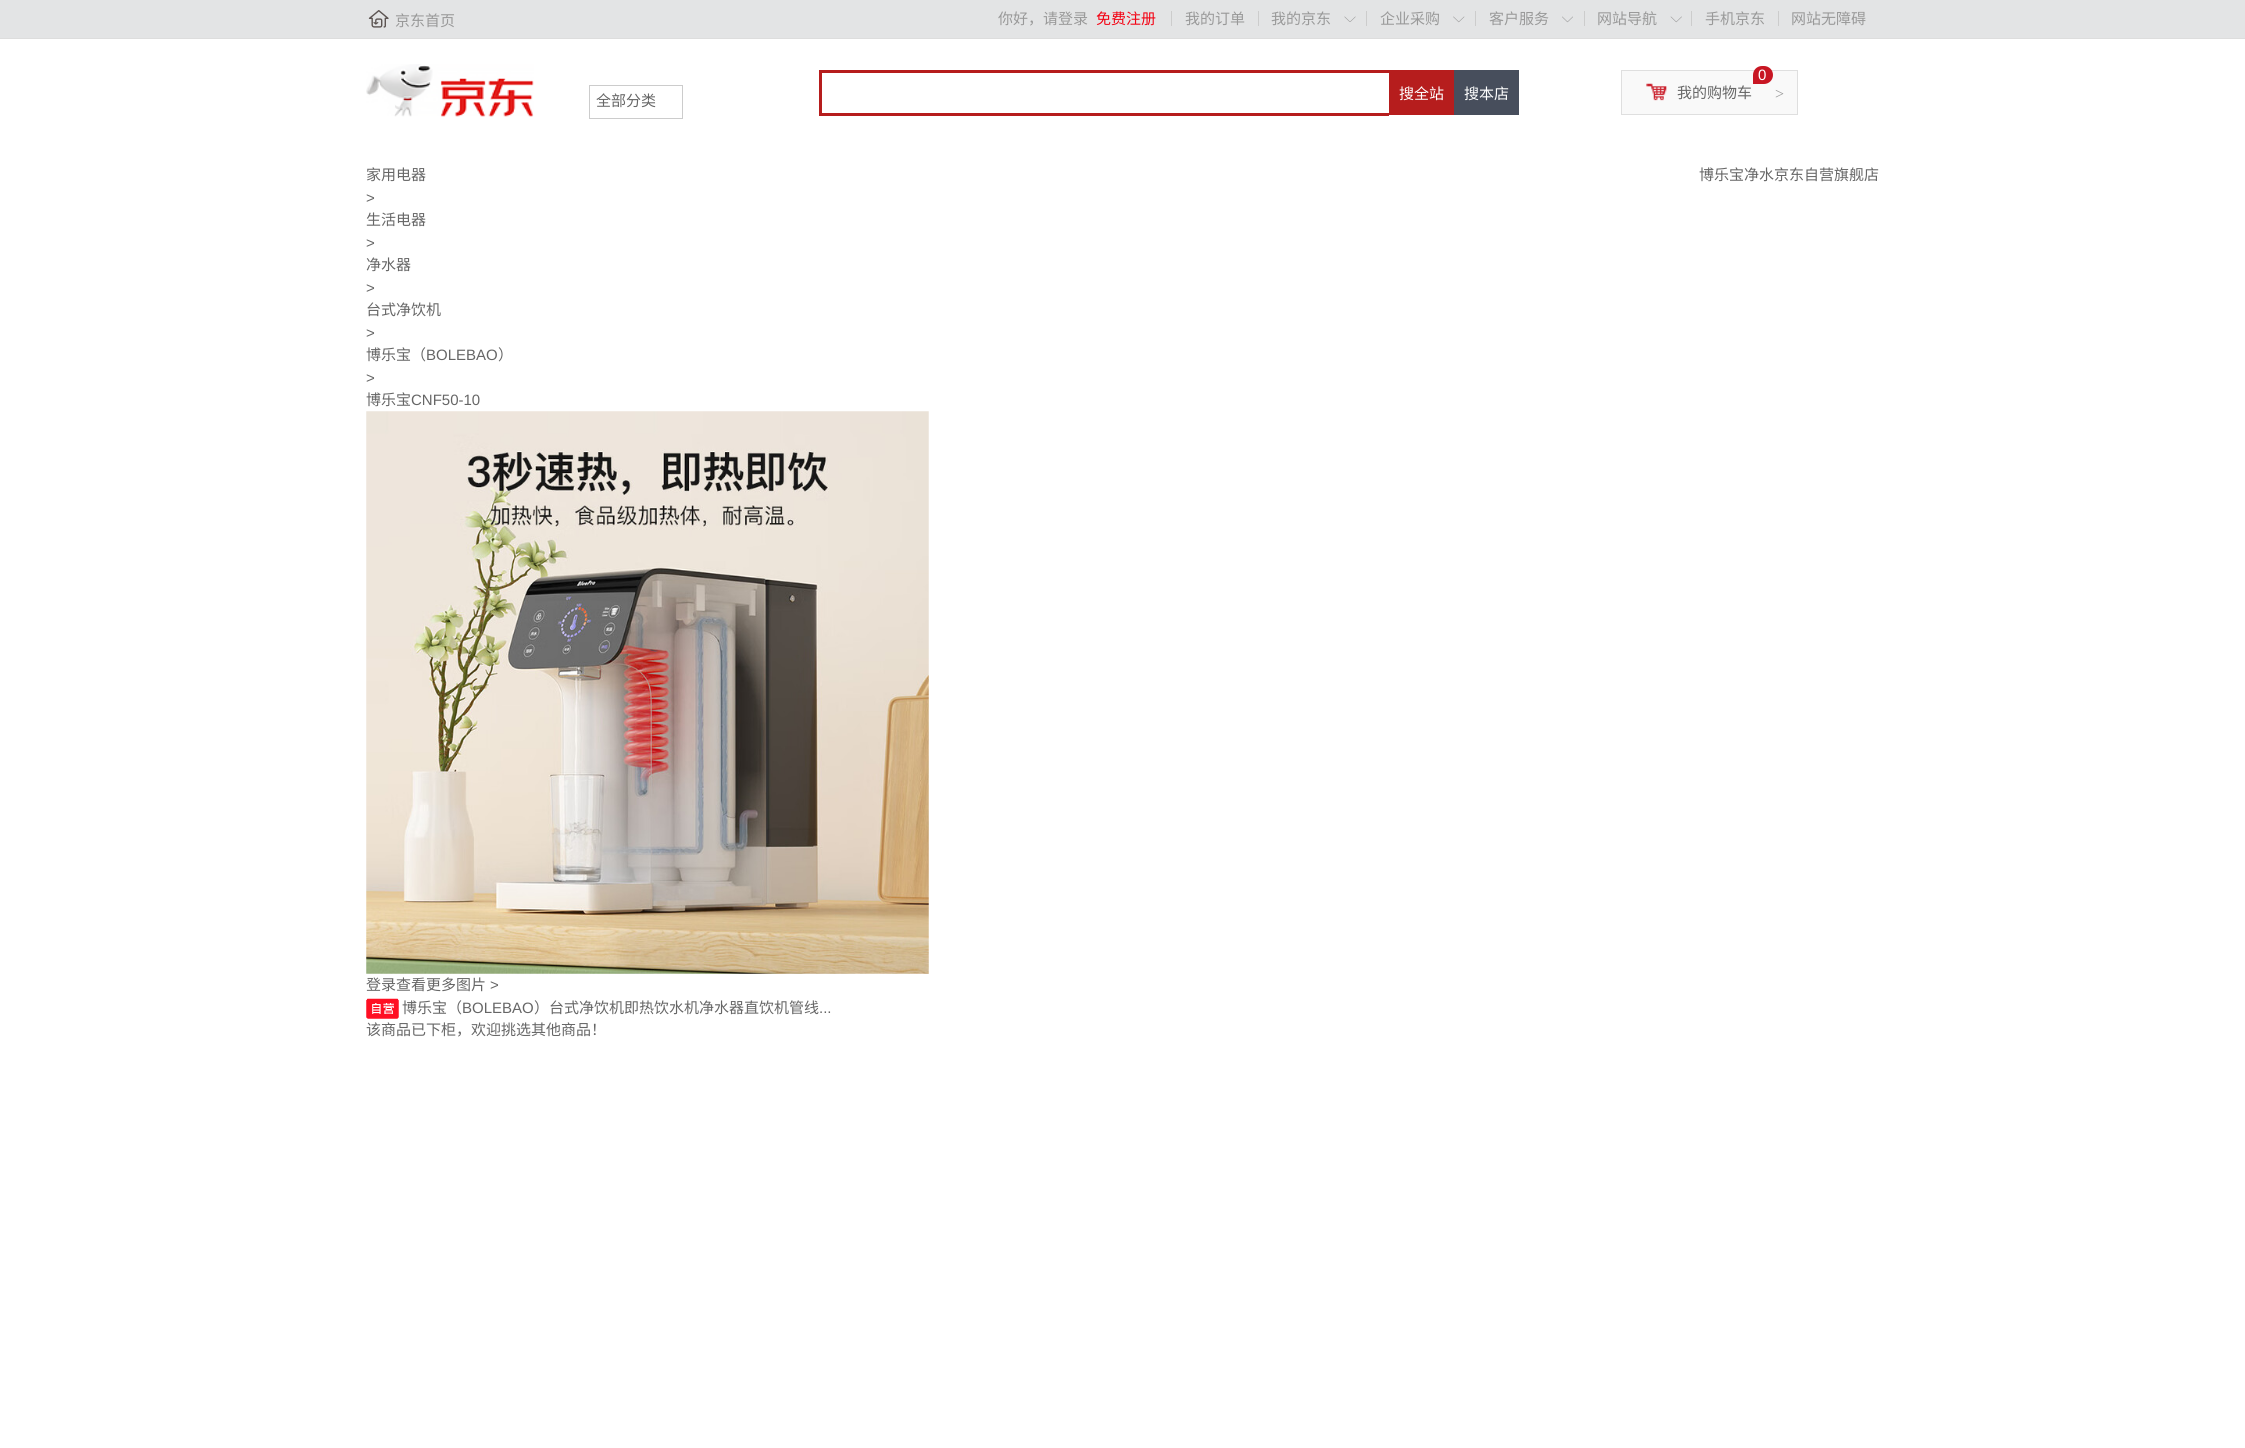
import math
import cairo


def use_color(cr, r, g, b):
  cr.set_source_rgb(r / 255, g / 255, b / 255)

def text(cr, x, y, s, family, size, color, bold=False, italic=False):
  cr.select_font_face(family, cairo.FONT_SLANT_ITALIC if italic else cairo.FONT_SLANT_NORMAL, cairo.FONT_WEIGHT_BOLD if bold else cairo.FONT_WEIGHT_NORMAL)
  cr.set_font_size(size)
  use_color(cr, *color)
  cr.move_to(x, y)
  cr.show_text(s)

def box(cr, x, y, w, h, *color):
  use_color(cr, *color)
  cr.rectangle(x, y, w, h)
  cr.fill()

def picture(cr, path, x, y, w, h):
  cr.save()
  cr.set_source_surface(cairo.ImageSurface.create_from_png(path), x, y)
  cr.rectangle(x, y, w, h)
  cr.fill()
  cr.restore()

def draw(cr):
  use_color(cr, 255, 255, 255)
  cr.paint()
  box(cr, 0, 0, 2245, 38, 227, 228, 229)
  box(cr, 0, 38, 2245, 1, 221, 221, 221)
  picture(cr, "img_01.png", 368, 10, 21, 18)
  box(cr, 1171, 11, 1, 15, 204, 204, 204)
  box(cr, 1258, 11, 1, 15, 204, 204, 204)
  picture(cr, "img_02.png", 1344, 16, 12, 6)
  box(cr, 1366, 11, 1, 15, 204, 204, 204)
  picture(cr, "img_03.png", 1453, 16, 12, 7)
  box(cr, 1475, 11, 1, 15, 204, 204, 204)
  picture(cr, "img_04.png", 1562, 16, 11, 7)
  box(cr, 1584, 11, 1, 15, 204, 204, 204)
  picture(cr, "img_05.png", 1670, 16, 12, 7)
  box(cr, 1691, 11, 1, 15, 204, 204, 204)
  box(cr, 1778, 11, 1, 15, 204, 204, 204)
  picture(cr, "img_06.png", 366, 64, 168, 53)
  cr.rectangle(589.5, 85.5, 93, 33)
  cr.set_line_width(1)
  cr.stroke()
  box(cr, 819, 70, 570, 3, 182, 29, 29)
  box(cr, 819, 113, 570, 3, 182, 29, 29)
  box(cr, 819, 70, 3, 45, 182, 29, 29)
  box(cr, 1389, 70, 65, 45, 182, 29, 29)
  box(cr, 1454, 70, 65, 45, 71, 78, 92)
  use_color(cr, 249, 249, 249)
  cr.rectangle(1621.5, 70.5, 176, 44)
  cr.fill_preserve()
  use_color(cr, 223, 223, 223)
  cr.stroke()
  use_color(cr, 200, 22, 35)
  cr.new_path()
  cr.move_to(1762, 66)
  cr.line_to(1764, 66)
  cr.curve_to(1769, 66, 1773, 70, 1773, 75)
  cr.curve_to(1773, 80, 1769, 84, 1764, 84)
  cr.line_to(1753, 84)
  cr.line_to(1753, 75)
  cr.curve_to(1753, 70, 1757, 66, 1762, 66)
  cr.close_path()
  cr.fill()
  picture(cr, "img_07.png", 1646, 83, 21, 18)
  picture(cr, "img_08.png", 366, 411, 563, 563)
  picture(cr, "img_09.png", 366, 998, 33, 21)
  text(cr, 395, 26, "京东首页", "Noto Sans CJK SC", 15, (153, 153, 153))
  text(cr, 998, 24, "你好，请登录", "Noto Sans CJK SC", 15, (153, 153, 153))
  text(cr, 1096, 24, "免费注册", "Noto Sans CJK SC", 15, (243, 2, 19))
  text(cr, 1185, 24, "我的订单", "Noto Sans CJK SC", 15, (153, 153, 153))
  text(cr, 1271, 24, "我的京东", "Noto Sans CJK SC", 15, (153, 153, 153))
  text(cr, 1380, 24, "企业采购", "Noto Sans CJK SC", 15, (153, 153, 153))
  text(cr, 1489, 24, "客户服务", "Noto Sans CJK SC", 15, (153, 153, 153))
  text(cr, 1597, 24, "网站导航", "Noto Sans CJK SC", 15, (153, 153, 153))
  text(cr, 1705, 24, "手机京东", "Noto Sans CJK SC", 15, (153, 153, 153))
  text(cr, 1791, 24, "网站无障碍", "Noto Sans CJK SC", 15, (153, 153, 153))
  text(cr, 596, 106, "全部分类", "Noto Sans CJK SC", 15, (102, 102, 102))
  text(cr, 1399, 99, "搜全站", "Noto Sans CJK SC", 15, (255, 255, 255))
  text(cr, 1464, 99, "搜本店", "Noto Sans CJK SC", 15, (255, 255, 255))
  text(cr, 1758, 80, "0", "Liberation Sans", 15, (255, 255, 255))
  text(cr, 1677, 98, "我的购物车", "Noto Sans CJK SC", 15, (102, 102, 102))
  text(cr, 1775, 99, ">", "Liberation Serif", 16, (153, 153, 153))
  text(cr, 366, 180, "家用电器", "Noto Sans CJK SC", 15, (102, 102, 102))
  text(cr, 366, 203, ">", "Liberation Sans", 15, (102, 102, 102))
  text(cr, 366, 225, "生活电器", "Noto Sans CJK SC", 15, (102, 102, 102))
  text(cr, 366, 248, ">", "Liberation Sans", 15, (102, 102, 102))
  text(cr, 366, 270, "净水器", "Noto Sans CJK SC", 15, (102, 102, 102))
  text(cr, 366, 293, ">", "Liberation Sans", 15, (102, 102, 102))
  text(cr, 366, 315, "台式净饮机", "Noto Sans CJK SC", 15, (102, 102, 102))
  text(cr, 366, 338, ">", "Liberation Sans", 15, (102, 102, 102))
  text(cr, 366, 360, "博乐宝（", "Noto Sans CJK SC", 15, (102, 102, 102))
  text(cr, 426, 360, "BOLEBAO", "Liberation Sans", 15, (102, 102, 102))
  text(cr, 498, 360, "）", "Noto Sans CJK SC", 15, (102, 102, 102))
  text(cr, 366, 383, ">", "Liberation Sans", 15, (102, 102, 102))
  text(cr, 366, 405, "博乐宝", "Noto Sans CJK SC", 15, (102, 102, 102))
  text(cr, 411, 405, "CNF50-10", "Liberation Sans", 15, (102, 102, 102))
  text(cr, 1699, 180, "博乐宝净水京东自营旗舰店", "Noto Sans CJK SC", 15, (102, 102, 102))
  text(cr, 366, 990, "登录查看更多图片", "Noto Sans CJK SC", 15, (102, 102, 102))
  text(cr, 490, 990, ">", "Liberation Sans", 15, (102, 102, 102))
  text(cr, 402, 1013, "博乐宝（", "Noto Sans CJK SC", 15, (102, 102, 102))
  text(cr, 462, 1013, "BOLEBAO", "Liberation Sans", 15, (102, 102, 102))
  text(cr, 534, 1013, "）台式净饮机即热饮水机净水器直饮机管线", "Noto Sans CJK SC", 15, (102, 102, 102))
  text(cr, 819, 1013, "...", "Liberation Sans", 15, (102, 102, 102))
  text(cr, 366, 1035, "该商品已下柜，欢迎挑选其他商品！", "Noto Sans CJK SC", 15, (102, 102, 102))


surface = cairo.ImageSurface(cairo.FORMAT_RGB24, 2245, 1448)
cr = cairo.Context(surface)
options = cairo.FontOptions()
options.set_hint_metrics(cairo.HINT_METRICS_OFF)
options.set_hint_style(cairo.HINT_STYLE_NONE)
cr.set_font_options(options)
cr.set_miter_limit(4)
draw(cr)
surface.write_to_png("out.png")
